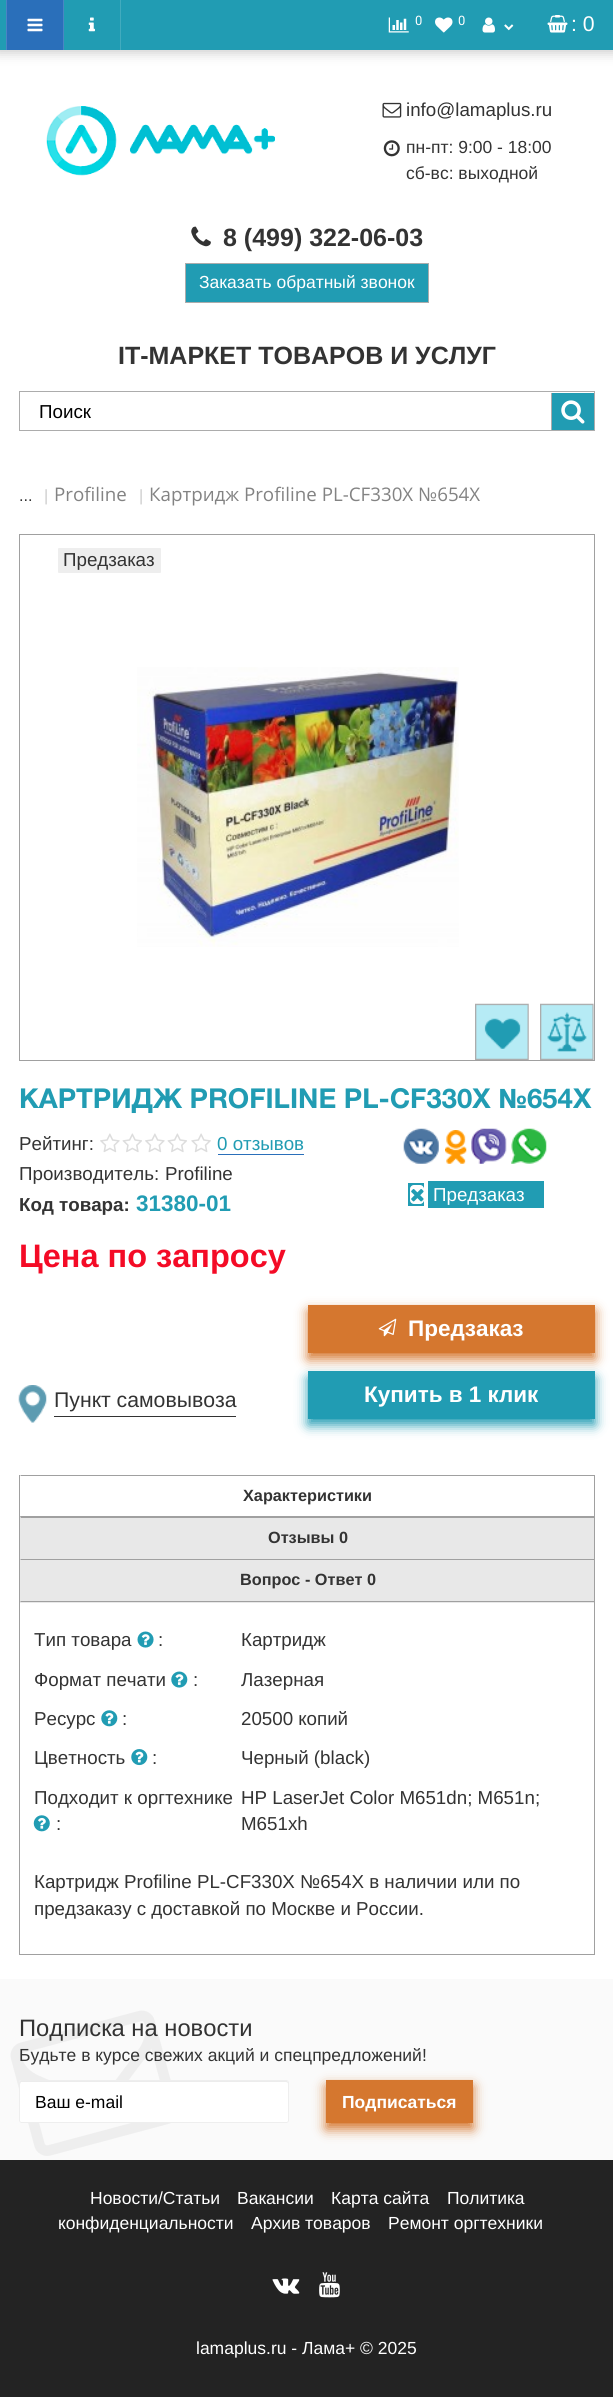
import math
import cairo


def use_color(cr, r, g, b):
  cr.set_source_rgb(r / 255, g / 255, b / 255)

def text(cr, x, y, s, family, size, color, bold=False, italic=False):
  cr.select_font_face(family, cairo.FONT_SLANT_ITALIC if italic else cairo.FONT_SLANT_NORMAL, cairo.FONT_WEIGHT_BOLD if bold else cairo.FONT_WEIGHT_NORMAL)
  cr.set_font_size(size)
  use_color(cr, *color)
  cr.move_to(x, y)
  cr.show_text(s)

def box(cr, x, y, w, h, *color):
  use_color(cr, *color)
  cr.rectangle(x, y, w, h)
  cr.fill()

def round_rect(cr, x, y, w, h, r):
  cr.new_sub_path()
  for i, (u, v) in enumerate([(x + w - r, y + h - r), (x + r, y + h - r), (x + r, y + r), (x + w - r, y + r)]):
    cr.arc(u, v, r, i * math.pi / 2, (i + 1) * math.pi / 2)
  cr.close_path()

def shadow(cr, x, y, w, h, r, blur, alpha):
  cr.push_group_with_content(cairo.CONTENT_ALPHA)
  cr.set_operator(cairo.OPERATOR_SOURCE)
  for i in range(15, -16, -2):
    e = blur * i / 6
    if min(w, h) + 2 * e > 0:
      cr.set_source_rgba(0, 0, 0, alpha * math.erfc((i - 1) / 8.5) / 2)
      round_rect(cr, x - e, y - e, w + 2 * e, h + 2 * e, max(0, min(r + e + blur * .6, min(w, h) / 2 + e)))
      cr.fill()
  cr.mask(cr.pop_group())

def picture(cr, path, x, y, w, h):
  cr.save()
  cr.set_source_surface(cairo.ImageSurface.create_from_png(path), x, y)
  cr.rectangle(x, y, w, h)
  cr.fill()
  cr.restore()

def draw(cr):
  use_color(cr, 255, 255, 255)
  cr.paint()
  use_color(cr, 0, 0, 0)
  shadow(cr, -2, -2, 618, 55, 0, 6, 0.2)
  box(cr, 0, 0, 613, 50, 33, 156, 179)
  box(cr, 7, 0, 56, 50, 42, 111, 186)
  box(cr, 63, 0, 1, 50, 74, 133, 196)
  box(cr, 6, 0, 1, 50, 74, 133, 196)
  picture(cr, "img_01.png", 27, 18, 16, 14)
  box(cr, 120, 0, 1, 50, 66, 171, 190)
  picture(cr, "img_02.png", 88, 17, 7, 15)
  picture(cr, "img_03.png", 388, 17, 21, 16)
  picture(cr, "img_04.png", 435, 17, 18, 16)
  picture(cr, "img_05.png", 482, 17, 13, 16)
  picture(cr, "img_06.png", 504, 24, 10, 7)
  picture(cr, "img_07.png", 547, 15, 21, 18)
  picture(cr, "img_08.png", 46, 106, 229, 70)
  picture(cr, "img_09.png", 382, 102, 20, 16)
  picture(cr, "img_10.png", 383, 140, 17, 17)
  picture(cr, "img_11.png", 191, 226, 20, 21)
  use_color(cr, 33, 156, 179)
  cr.rectangle(185.5, 263.5, 243, 39)
  cr.fill_preserve()
  use_color(cr, 172, 172, 172)
  cr.set_line_width(1)
  cr.stroke()
  cr.rectangle(19.5, 391.5, 575, 39)
  cr.stroke()
  box(cr, 552, 393, 42, 37, 33, 156, 179)
  box(cr, 551, 393, 1, 37, 172, 172, 172)
  picture(cr, "img_12.png", 561, 400, 24, 24)
  cr.rectangle(19.5, 534.5, 575, 526)
  use_color(cr, 160, 160, 160)
  cr.stroke()
  use_color(cr, 238, 238, 238)
  round_rect(cr, 58, 548, 103, 25, 1)
  cr.fill()
  picture(cr, "img_13.png", 137, 667, 322, 280)
  picture(cr, "img_14.png", 475, 1003, 54, 57)
  picture(cr, "img_15.png", 540, 1003, 54, 57)
  picture(cr, "img_16.png", 100, 1133, 20, 20)
  picture(cr, "img_17.png", 122, 1133, 20, 20)
  picture(cr, "img_16.png", 145, 1133, 20, 20)
  picture(cr, "img_17.png", 167, 1133, 20, 20)
  picture(cr, "img_18.png", 191, 1133, 20, 20)
  box(cr, 218, 1154, 86, 1, 42, 111, 186)
  picture(cr, "img_19.png", 403, 1128, 36, 36)
  picture(cr, "img_20.png", 445, 1130, 22, 34)
  picture(cr, "img_21.png", 471, 1128, 36, 36)
  picture(cr, "img_22.png", 511, 1128, 36, 36)
  box(cr, 408, 1183, 16, 23, 33, 156, 179)
  box(cr, 428, 1181, 116, 27, 33, 156, 179)
  use_color(cr, 255, 255, 255)
  round_rect(cr, 410, 1185, 14, 19, 4)
  cr.fill()
  picture(cr, "img_23.png", 411, 1189, 13, 13)
  use_color(cr, 213, 119, 47)
  shadow(cr, 308, 1311, 287, 48, 0, 6, 1)
  box(cr, 308, 1305, 287, 48, 213, 119, 47)
  picture(cr, "img_24.png", 378, 1318, 19, 19)
  box(cr, 54, 1416, 182, 1, 51, 51, 51)
  picture(cr, "img_25.png", 18, 1385, 29, 38)
  use_color(cr, 33, 156, 179)
  shadow(cr, 308, 1378, 287, 47, 0, 6, 1)
  box(cr, 308, 1371, 287, 48, 33, 156, 179)
  box(cr, 19, 1475, 1, 126, 160, 160, 160)
  cr.new_path()
  cr.move_to(20, 1475)
  cr.line_to(595, 1475)
  cr.line_to(594, 1476)
  cr.line_to(21, 1476)
  cr.close_path()
  cr.fill()
  box(cr, 594, 1475, 1, 43, 160, 160, 160)
  cr.rectangle(19.5, 1601.5, 575, 353)
  cr.stroke()
  box(cr, 20, 1516, 574, 87, 232, 232, 232)
  use_color(cr, 160, 160, 160)
  cr.new_path()
  cr.move_to(20, 1516)
  cr.line_to(595, 1516)
  cr.line_to(594, 1518)
  cr.line_to(21, 1518)
  cr.close_path()
  cr.fill()
  box(cr, 594, 1516, 1, 44, 160, 160, 160)
  cr.new_path()
  cr.move_to(20, 1559)
  cr.line_to(595, 1559)
  cr.line_to(594, 1560)
  cr.line_to(21, 1560)
  cr.close_path()
  cr.fill()
  box(cr, 594, 1559, 1, 44, 160, 160, 160)
  cr.new_path()
  cr.move_to(595, 1602)
  cr.line_to(20, 1602)
  cr.line_to(21, 1601)
  cr.line_to(594, 1601)
  cr.close_path()
  cr.fill()
  picture(cr, "img_26.png", 137, 1631, 17, 17)
  picture(cr, "img_27.png", 171, 1671, 17, 17)
  picture(cr, "img_28.png", 101, 1710, 17, 17)
  picture(cr, "img_29.png", 131, 1749, 17, 17)
  picture(cr, "img_30.png", 33, 1815, 17, 17)
  box(cr, 0, 1979, 613, 181, 250, 250, 250)
  picture(cr, "img_31.png", 10, 2010, 161, 146)
  use_color(cr, 255, 255, 255)
  round_rect(cr, 19, 2080, 270, 43, 2.5)
  cr.fill()
  use_color(cr, 236, 236, 236)
  cr.new_path()
  cr.move_to(21, 2082)
  cr.line_to(286, 2082)
  cr.curve_to(287, 2082, 288, 2083, 288, 2084)
  cr.curve_to(288, 2083, 288, 2081, 287, 2081)
  cr.line_to(20, 2081)
  cr.line_to(20, 2084)
  cr.close_path()
  cr.fill()
  round_rect(cr, 19.5, 2080.5, 269, 42, 2)
  use_color(cr, 238, 238, 238)
  cr.stroke()
  use_color(cr, 213, 119, 47)
  shadow(cr, 326, 2086, 147, 43, 0, 6, 1)
  box(cr, 326, 2080, 147, 43, 213, 119, 47)
  box(cr, 0, 2160, 613, 237, 35, 35, 35)
  picture(cr, "img_32.png", 272, 2278, 28, 16)
  picture(cr, "img_33.png", 319, 2272, 21, 26)
  text(cr, 415, 25, "0", "Roboto", 13, (255, 255, 255))
  text(cr, 458, 25, "0", "Roboto", 13, (255, 255, 255))
  text(cr, 571, 31, ": 0", "Liberation Sans", 21.25, (255, 255, 255))
  text(cr, 406, 116, "info@lamaplus.ru", "Liberation Sans", 18.75, (51, 51, 51))
  text(cr, 406, 153, "пн-пт: 9:00 - 18:00", "Liberation Sans", 17.5, (51, 51, 51))
  text(cr, 406, 179, "сб-вс: выходной", "Liberation Sans", 17.5, (51, 51, 51))
  text(cr, 223, 246, "8 (499) 322-06-03", "Liberation Sans", 25, (51, 51, 51), bold=True)
  text(cr, 199, 288, "Заказать обратный звонок", "Liberation Sans", 17.5, (255, 255, 255))
  text(cr, 118, 364, "IT-МАРКЕТ ТОВАРОВ И УСЛУГ", "Liberation Sans", 25, (51, 51, 51), bold=True)
  text(cr, 39, 418, "Поиск", "Liberation Sans", 18.75, (0, 0, 0))
  text(cr, 19, 501, "...", "Liberation Sans", 16.25, (51, 51, 51))
  text(cr, 44, 501, "|", "Liberation Sans", 16.25, (204, 204, 204))
  text(cr, 54, 501, "Profiline", "Open Sans", 18.75, (131, 131, 131))
  text(cr, 139, 501, "|", "Liberation Sans", 16.25, (204, 204, 204))
  text(cr, 149, 501, "Картридж Profiline PL-CF330X №654X", "Open Sans", 18.75, (131, 131, 131))
  text(cr, 63, 566, "Предзаказ", "Liberation Sans", 18.75, (51, 51, 51))
  text(cr, 19, 1108, "КАРТРИДЖ PROFILINE PL-CF330X №654X", "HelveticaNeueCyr", 27.5, (33, 156, 179), bold=True)
  text(cr, 19, 1150, "Рейтинг:", "Liberation Sans", 18.75, (51, 51, 51))
  text(cr, 217, 1150, "0 отзывов", "Liberation Sans", 18.75, (33, 156, 179))
  text(cr, 19, 1180, "Производитель:", "Liberation Sans", 18.75, (51, 51, 51))
  text(cr, 165, 1180, "Profiline", "Liberation Sans", 18.75, (51, 51, 51))
  text(cr, 19, 1211, "Код товара:", "Liberation Sans", 18.75, (51, 51, 51), bold=True)
  text(cr, 136, 1211, "31380-01", "Liberation Sans", 22.5, (33, 156, 179), bold=True)
  text(cr, 433, 1201, "Предзаказ", "Liberation Sans", 18.75, (255, 255, 255))
  text(cr, 19, 1267, "Цена по запросу", "Liberation Sans", 32.5, (244, 11, 38), bold=True)
  text(cr, 408, 1336, "Предзаказ", "Liberation Sans", 22.5, (255, 255, 255), bold=True)
  text(cr, 54, 1407, "Пункт самовывоза", "Liberation Sans", 21.25, (51, 51, 51))
  text(cr, 364, 1402, "Купить в 1 клик", "Liberation Sans", 22.5, (255, 255, 255), bold=True)
  text(cr, 243, 1501, "Характеристики", "Liberation Sans", 16.25, (51, 51, 51), bold=True)
  text(cr, 268, 1543, "Отзывы 0", "Liberation Sans", 16.25, (51, 51, 51), bold=True)
  text(cr, 240, 1585, "Вопрос - Ответ 0", "Liberation Sans", 16.25, (51, 51, 51), bold=True)
  text(cr, 34, 1646, "Тип товара", "Liberation Sans", 18.75, (51, 51, 51))
  text(cr, 158, 1646, ":", "Liberation Sans", 18.75, (51, 51, 51))
  text(cr, 241, 1646, "Картридж", "Liberation Sans", 18.75, (51, 51, 51))
  text(cr, 34, 1686, "Формат печати", "Liberation Sans", 18.75, (51, 51, 51))
  text(cr, 193, 1686, ":", "Liberation Sans", 18.75, (51, 51, 51))
  text(cr, 241, 1686, "Лазерная", "Liberation Sans", 18.75, (51, 51, 51))
  text(cr, 34, 1725, "Ресурс", "Liberation Sans", 18.75, (51, 51, 51))
  text(cr, 122, 1725, ":", "Liberation Sans", 18.75, (51, 51, 51))
  text(cr, 241, 1725, "20500 копий", "Liberation Sans", 18.75, (51, 51, 51))
  text(cr, 34, 1764, "Цветность", "Liberation Sans", 18.75, (51, 51, 51))
  text(cr, 152, 1764, ":", "Liberation Sans", 18.75, (51, 51, 51))
  text(cr, 241, 1764, "Черный (black)", "Liberation Sans", 18.75, (51, 51, 51))
  text(cr, 34, 1804, "Подходит к оргтехнике", "Liberation Sans", 18.75, (51, 51, 51))
  text(cr, 56, 1830, ":", "Liberation Sans", 18.75, (51, 51, 51))
  text(cr, 241, 1804, "HP LaserJet Color M651dn; M651n;", "Liberation Sans", 18.75, (51, 51, 51))
  text(cr, 241, 1830, "M651xh", "Liberation Sans", 18.75, (51, 51, 51))
  text(cr, 34, 1888, "Картридж Profiline PL-CF330X №654X в наличии или по", "Liberation Sans", 18.75, (51, 51, 51))
  text(cr, 34, 1915, "предзаказу с доставкой по Москве и России.", "Liberation Sans", 18.75, (51, 51, 51))
  text(cr, 19, 2036, "Подписка на новости", "Liberation Sans", 23.75, (51, 51, 51))
  text(cr, 19, 2061, "Будьте в курсе свежих акций и спецпредложений!", "Liberation Sans", 17.5, (51, 51, 51))
  text(cr, 35, 2108, "Ваш e-mail", "Liberation Sans", 17.5, (0, 0, 0))
  text(cr, 342, 2108, "Подписаться", "Liberation Sans", 17.5, (255, 255, 255), bold=True)
  text(cr, 90, 2204, "Новости/Статьи", "Liberation Sans", 17.5, (255, 255, 255))
  text(cr, 237, 2204, "Вакансии", "Liberation Sans", 17.5, (255, 255, 255))
  text(cr, 331, 2204, "Карта сайта", "Liberation Sans", 17.5, (255, 255, 255))
  text(cr, 447, 2204, "Политика", "Liberation Sans", 17.5, (255, 255, 255))
  text(cr, 58, 2229, "конфиденциальности", "Liberation Sans", 17.5, (255, 255, 255))
  text(cr, 251, 2229, "Архив товаров", "Liberation Sans", 17.5, (255, 255, 255))
  text(cr, 388, 2229, "Ремонт оргтехники", "Liberation Sans", 17.5, (255, 255, 255))
  text(cr, 196, 2354, "lamaplus.ru - Лама+ © 2025", "Liberation Sans", 17.5, (255, 255, 255))


surface = cairo.ImageSurface(cairo.FORMAT_RGB24, 613, 2397)
cr = cairo.Context(surface)
options = cairo.FontOptions()
options.set_hint_metrics(cairo.HINT_METRICS_OFF)
options.set_hint_style(cairo.HINT_STYLE_NONE)
cr.set_font_options(options)
cr.set_miter_limit(4)
draw(cr)
surface.write_to_png("out.png")
